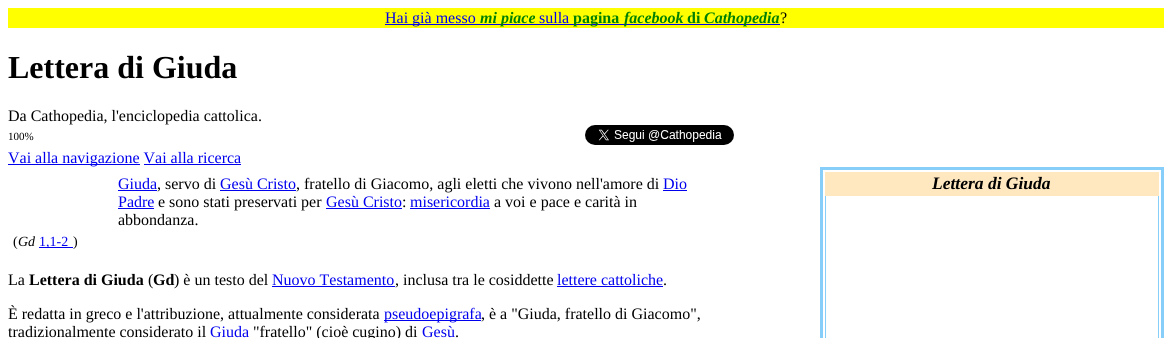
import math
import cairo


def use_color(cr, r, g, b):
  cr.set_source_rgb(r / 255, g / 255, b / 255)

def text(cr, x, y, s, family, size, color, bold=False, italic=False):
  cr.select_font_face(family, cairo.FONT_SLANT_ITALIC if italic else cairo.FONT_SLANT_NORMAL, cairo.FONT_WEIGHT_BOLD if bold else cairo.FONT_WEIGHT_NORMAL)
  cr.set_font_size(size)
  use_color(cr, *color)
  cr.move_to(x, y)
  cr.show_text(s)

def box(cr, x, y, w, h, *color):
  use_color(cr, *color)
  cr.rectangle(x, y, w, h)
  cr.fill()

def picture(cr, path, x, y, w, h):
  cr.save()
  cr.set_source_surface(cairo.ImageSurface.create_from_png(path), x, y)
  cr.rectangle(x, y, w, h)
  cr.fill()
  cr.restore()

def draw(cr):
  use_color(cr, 255, 255, 255)
  cr.paint()
  box(cr, 8, 8, 1156, 20, 255, 255, 0)
  box(cr, 385, 24, 395, 1, 0, 0, 238)
  picture(cr, "img_01.png", 585, 125, 149, 20)
  box(cr, 8, 164, 132, 1, 0, 0, 238)
  box(cr, 144, 164, 97, 1, 0, 0, 238)
  box(cr, 118, 190, 39, 1, 0, 0, 238)
  box(cr, 220, 190, 76, 1, 0, 0, 238)
  box(cr, 663, 190, 24, 1, 0, 0, 238)
  box(cr, 118, 208, 36, 1, 0, 0, 238)
  box(cr, 326, 208, 76, 1, 0, 0, 238)
  box(cr, 410, 208, 80, 1, 0, 0, 238)
  box(cr, 39, 247, 34, 1, 0, 0, 238)
  cr.rectangle(821.5, 168.5, 341, 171)
  use_color(cr, 135, 206, 250)
  cr.set_line_width(3)
  cr.stroke()
  box(cr, 825, 172, 334, 24, 255, 232, 191)
  box(cr, 1158, 196, 1, 142, 135, 206, 250)
  box(cr, 825, 196, 1, 142, 135, 206, 250)
  box(cr, 272, 286, 123, 1, 0, 0, 238)
  box(cr, 557, 286, 106, 1, 0, 0, 238)
  box(cr, 384, 320, 97, 1, 0, 0, 238)
  text(cr, 385, 23, "Hai già messo", "Liberation Serif", 16, (0, 0, 238))
  text(cr, 480, 23, "mi piace", "Liberation Serif", 16, (0, 128, 0), bold=True, italic=True)
  text(cr, 539, 23, "sulla", "Liberation Serif", 16, (0, 0, 238))
  text(cr, 573, 23, "pagina", "Liberation Serif", 16, (0, 128, 0), bold=True)
  text(cr, 624, 23, "facebook", "Liberation Serif", 16, (0, 128, 0), bold=True, italic=True)
  text(cr, 687, 23, "di", "Liberation Serif", 16, (0, 128, 0), bold=True)
  text(cr, 704, 23, "Cathopedia", "Liberation Serif", 16, (0, 128, 0), bold=True, italic=True)
  text(cr, 780, 23, "?", "Liberation Serif", 16, (0, 0, 0))
  text(cr, 8, 78, "Lettera di Giuda", "Liberation Serif", 32, (0, 0, 0), bold=True)
  text(cr, 8, 121, "Da Cathopedia, l'enciclopedia cattolica.", "Liberation Serif", 16, (0, 0, 0))
  text(cr, 8, 140, "100%", "Liberation Serif", 11, (0, 0, 0))
  text(cr, 8, 163, "Vai alla navigazione Vai alla ricerca", "Liberation Serif", 16, (0, 0, 238))
  text(cr, 118, 189, "Giuda", "Liberation Serif", 16, (0, 0, 238))
  text(cr, 157, 189, ", servo di", "Liberation Serif", 16, (0, 0, 0))
  text(cr, 220, 189, "Gesù Cristo", "Liberation Serif", 16, (0, 0, 238))
  text(cr, 296, 189, ", fratello di Giacomo, agli eletti che vivono nell'amore di", "Liberation Serif", 16, (0, 0, 0))
  text(cr, 663, 189, "Dio", "Liberation Serif", 16, (0, 0, 238))
  text(cr, 118, 207, "Padre", "Liberation Serif", 16, (0, 0, 238))
  text(cr, 158, 207, "e sono stati preservati per", "Liberation Serif", 16, (0, 0, 0))
  text(cr, 326, 207, "Gesù Cristo", "Liberation Serif", 16, (0, 0, 238))
  text(cr, 402, 207, ":", "Liberation Serif", 16, (0, 0, 0))
  text(cr, 410, 207, "misericordia", "Liberation Serif", 16, (0, 0, 238))
  text(cr, 494, 207, "a voi e pace e carità in", "Liberation Serif", 16, (0, 0, 0))
  text(cr, 118, 225, "abbondanza.", "Liberation Serif", 16, (0, 0, 0))
  text(cr, 13, 246, "(", "Liberation Serif", 14, (0, 0, 0))
  text(cr, 18, 246, "Gd", "Liberation Serif", 14, (0, 0, 0), italic=True)
  text(cr, 39, 246, "1,1-2", "Liberation Serif", 14, (0, 0, 238))
  text(cr, 73, 246, ")", "Liberation Serif", 14, (0, 0, 0))
  text(cr, 932, 189, "Lettera di Giuda", "Liberation Serif", 17.5, (0, 0, 0), bold=True, italic=True)
  text(cr, 8, 285, "La", "Liberation Serif", 16, (0, 0, 0))
  text(cr, 29, 285, "Lettera di Giuda", "Liberation Serif", 16, (0, 0, 0), bold=True)
  text(cr, 148, 285, "(", "Liberation Serif", 16, (0, 0, 0))
  text(cr, 153, 285, "Gd", "Liberation Serif", 16, (0, 0, 0), bold=True)
  text(cr, 174, 285, ") è un testo del", "Liberation Serif", 16, (0, 0, 0))
  text(cr, 272, 285, "Nuovo Testamento", "Liberation Serif", 16, (0, 0, 238))
  text(cr, 395, 285, ", inclusa tra le cosiddette", "Liberation Serif", 16, (0, 0, 0))
  text(cr, 557, 285, "lettere cattoliche", "Liberation Serif", 16, (0, 0, 238))
  text(cr, 663, 285, ".", "Liberation Serif", 16, (0, 0, 0))
  text(cr, 8, 319, "È redatta in greco e l'attribuzione, attualmente considerata", "Liberation Serif", 16, (0, 0, 0))
  text(cr, 384, 319, "pseudoepigrafa", "Liberation Serif", 16, (0, 0, 238))
  text(cr, 481, 319, ", è a \"Giuda, fratello di Giacomo\",", "Liberation Serif", 16, (0, 0, 0))
  text(cr, 8, 337, "tradizionalmente considerato il", "Liberation Serif", 16, (0, 0, 0))
  text(cr, 210, 337, "Giuda", "Liberation Serif", 16, (0, 0, 238))
  text(cr, 253, 337, "\"fratello\" (cioè cugino) di", "Liberation Serif", 16, (0, 0, 0))
  text(cr, 422, 337, "Gesù", "Liberation Serif", 16, (0, 0, 238))
  text(cr, 455, 337, ".", "Liberation Serif", 16, (0, 0, 0))


surface = cairo.ImageSurface(cairo.FORMAT_RGB24, 1172, 338)
cr = cairo.Context(surface)
options = cairo.FontOptions()
options.set_hint_metrics(cairo.HINT_METRICS_OFF)
options.set_hint_style(cairo.HINT_STYLE_NONE)
cr.set_font_options(options)
cr.set_miter_limit(4)
draw(cr)
surface.write_to_png("out.png")
